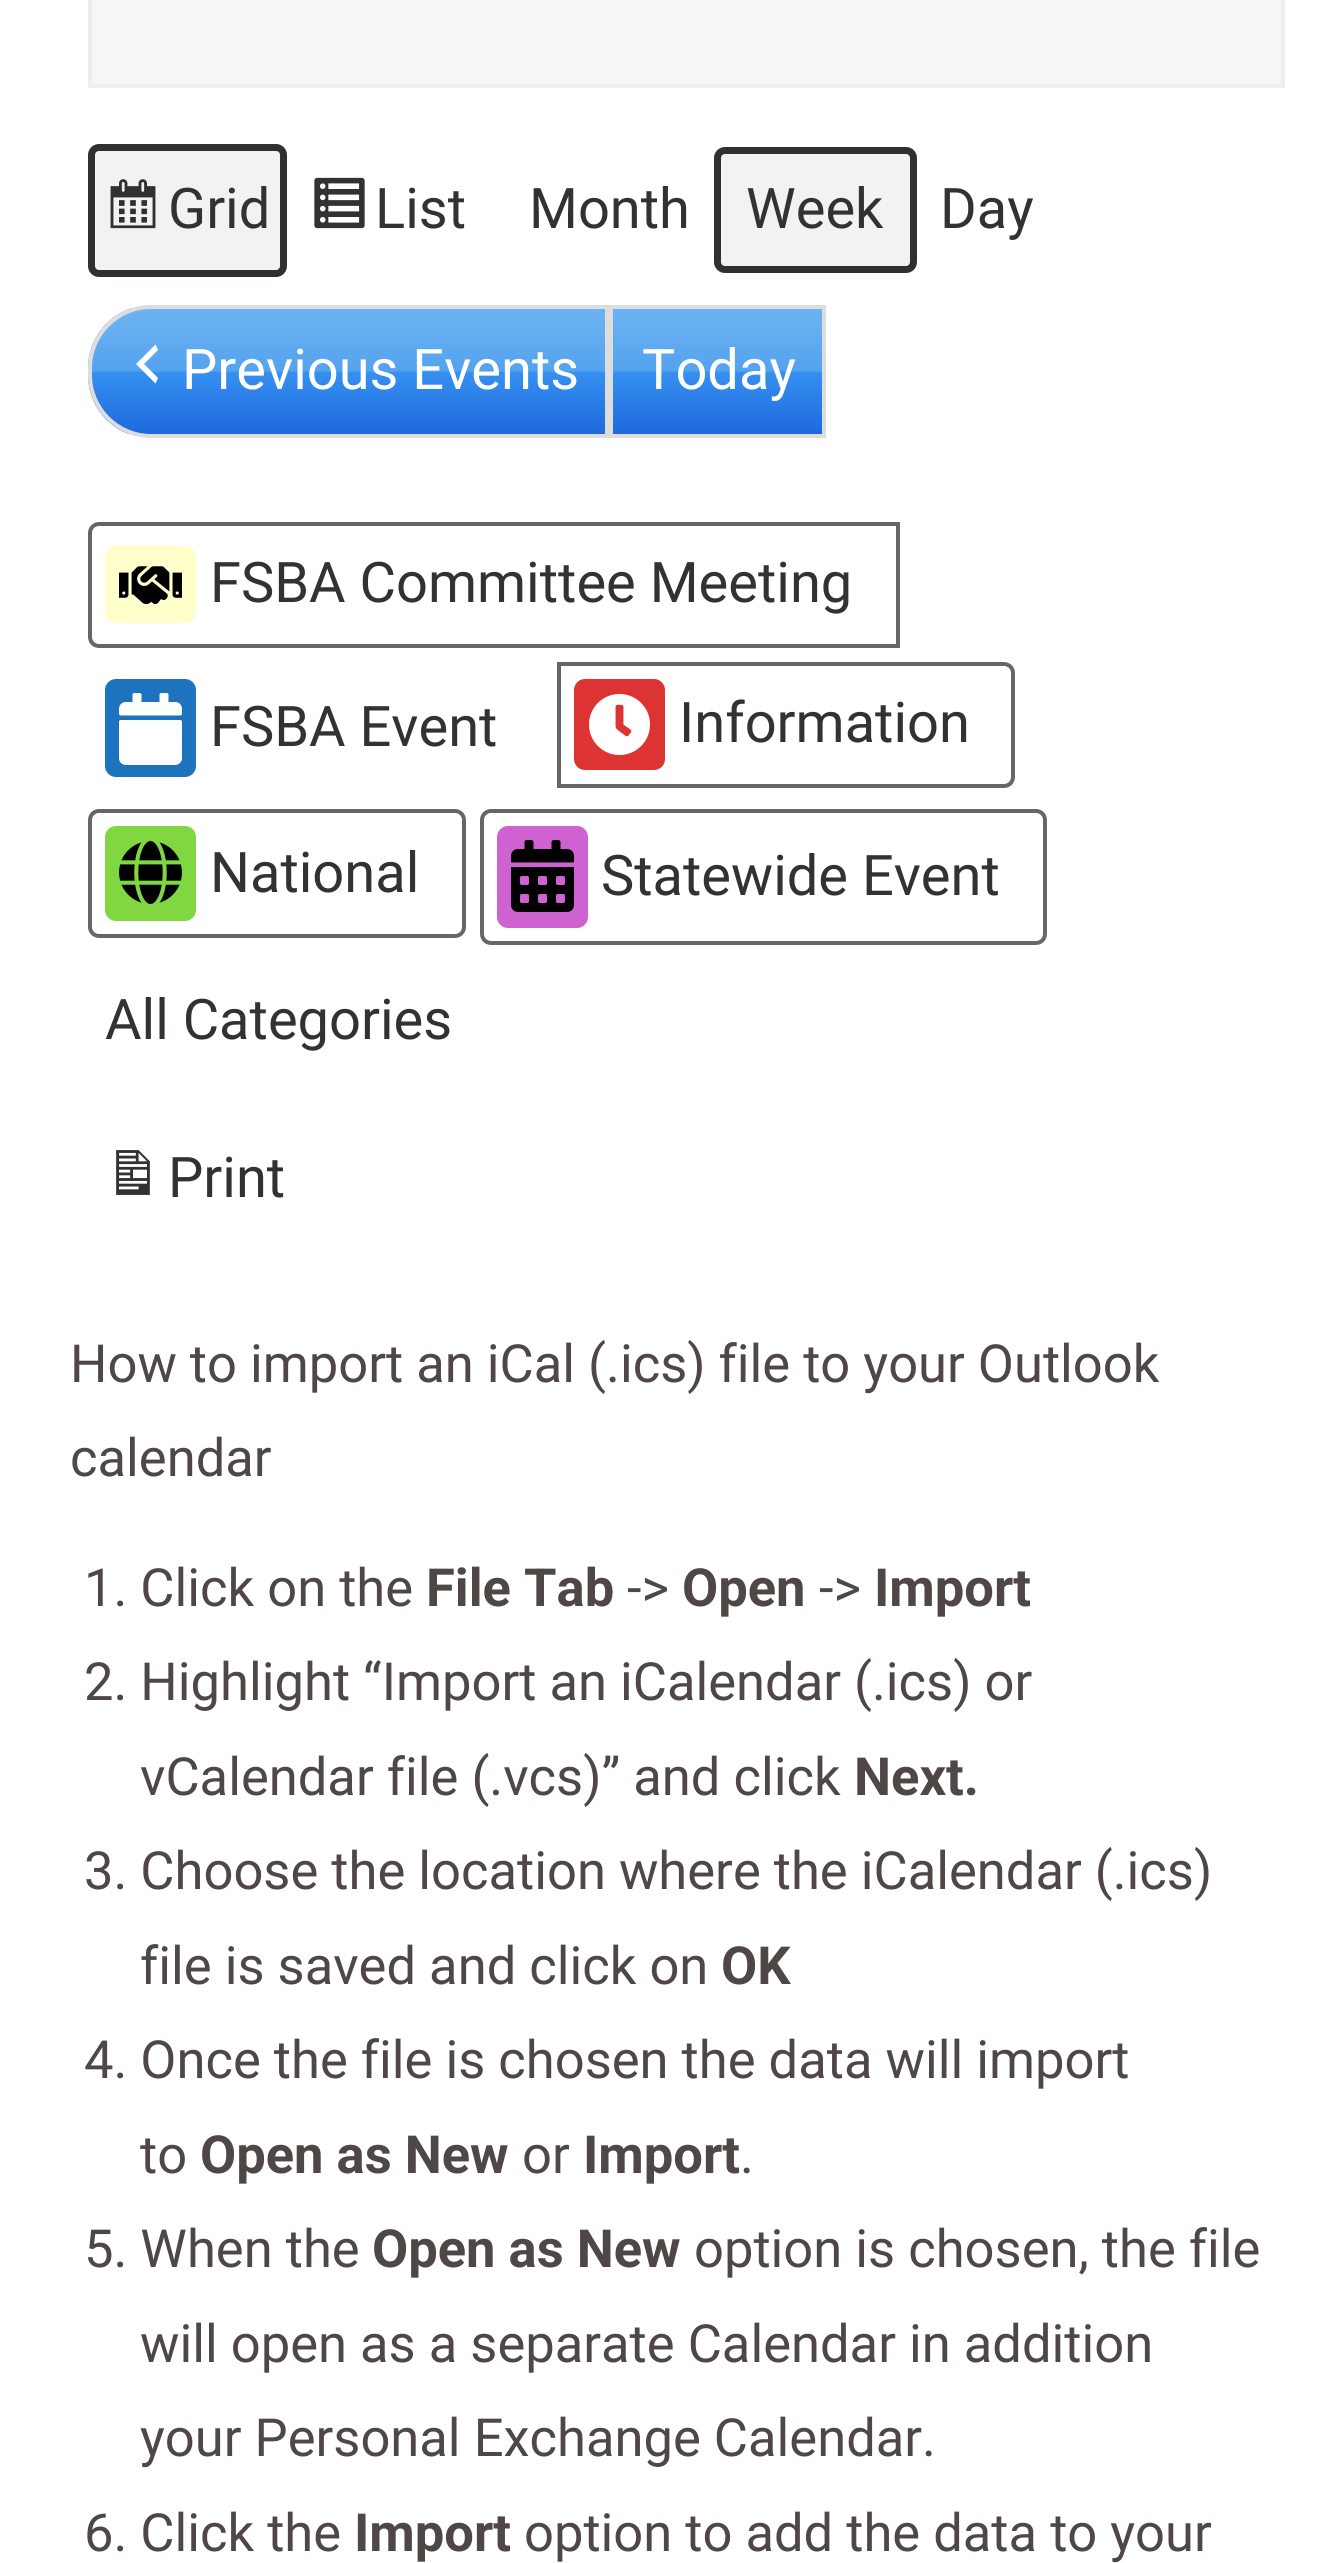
import math
import cairo


def use_color(cr, r, g, b):
  cr.set_source_rgb(r / 255, g / 255, b / 255)

def text(cr, x, y, s, family, size, color, bold=False, italic=False):
  cr.select_font_face(family, cairo.FONT_SLANT_ITALIC if italic else cairo.FONT_SLANT_NORMAL, cairo.FONT_WEIGHT_BOLD if bold else cairo.FONT_WEIGHT_NORMAL)
  cr.set_font_size(size)
  use_color(cr, *color)
  cr.move_to(x, y)
  cr.show_text(s)

def round_rect(cr, x, y, w, h, r):
  cr.new_sub_path()
  for i, (u, v) in enumerate([(x + w - r, y + h - r), (x + r, y + h - r), (x + r, y + r), (x + w - r, y + r)]):
    cr.arc(u, v, r, i * math.pi / 2, (i + 1) * math.pi / 2)
  cr.close_path()

def picture(cr, path, x, y, w, h):
  cr.save()
  cr.set_source_surface(cairo.ImageSurface.create_from_png(path), x, y)
  cr.rectangle(x, y, w, h)
  cr.fill()
  cr.restore()

def draw(cr):
  use_color(cr, 255, 255, 255)
  cr.paint()
  use_color(cr, 246, 246, 246)
  cr.rectangle(90, -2, 1193, 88)
  cr.fill_preserve()
  use_color(cr, 238, 238, 238)
  cr.set_line_width(4)
  cr.stroke()
  use_color(cr, 242, 242, 242)
  round_rect(cr, 88, 144, 199, 133, 11)
  cr.fill()
  picture(cr, "img_01.png", 110, 179, 46, 50)
  round_rect(cr, 91.5, 147.5, 192, 126, 7.5)
  use_color(cr, 47, 48, 48)
  cr.set_line_width(7)
  cr.stroke()
  picture(cr, "img_02.png", 314, 177, 51, 52)
  use_color(cr, 242, 242, 242)
  round_rect(cr, 714, 147, 203, 126, 11)
  cr.fill()
  round_rect(cr, 717.5, 150.5, 196, 119, 7.5)
  use_color(cr, 47, 48, 48)
  cr.stroke()
  cr.save()
  cr.new_path()
  cr.move_to(151, 305)
  cr.line_to(609, 305)
  cr.line_to(609, 438)
  cr.line_to(151, 438)
  cr.curve_to(116, 438, 88, 410, 88, 375)
  cr.line_to(88, 368)
  cr.curve_to(88, 333, 116, 305, 151, 305)
  cr.close_path()
  cr.clip()
  gradient = cairo.LinearGradient(348, 308, 348, 434)
  gradient.add_color_stop_rgba(0, 0.427, 0.702, 0.949, 1)
  gradient.add_color_stop_rgba(0.5, 0.329, 0.639, 0.933, 1)
  gradient.add_color_stop_rgba(0.51, 0.212, 0.565, 0.941, 1)
  gradient.add_color_stop_rgba(1, 0.118, 0.412, 0.871, 1)
  cr.set_source(gradient)
  cr.rectangle(88, 308, 517, 126)
  cr.fill()
  cr.restore()
  cr.new_path()
  cr.move_to(151, 307)
  cr.line_to(607, 307)
  cr.line_to(607, 436)
  cr.line_to(151, 436)
  cr.curve_to(117.5, 436, 90, 408.5, 90, 375)
  cr.line_to(90, 368)
  cr.curve_to(90, 334.5, 117.5, 307, 151, 307)
  cr.close_path()
  use_color(cr, 221, 221, 221)
  cr.set_line_width(4)
  cr.stroke()
  use_color(cr, 255, 255, 255)
  cr.new_path()
  cr.move_to(158, 350)
  cr.line_to(144, 364)
  cr.line_to(158, 378)
  cr.line_to(155.5, 383.5)
  cr.line_to(136, 364)
  cr.line_to(155.5, 344.5)
  cr.close_path()
  cr.fill()
  gradient = cairo.LinearGradient(718, 308, 718, 434)
  gradient.add_color_stop_rgba(0, 0.427, 0.702, 0.949, 1)
  gradient.add_color_stop_rgba(0.5, 0.329, 0.639, 0.933, 1)
  gradient.add_color_stop_rgba(0.51, 0.212, 0.565, 0.941, 1)
  gradient.add_color_stop_rgba(1, 0.118, 0.412, 0.871, 1)
  cr.set_source(gradient)
  cr.rectangle(613, 309, 209, 125)
  cr.fill()
  cr.rectangle(611, 307, 213, 129)
  use_color(cr, 221, 221, 221)
  cr.stroke()
  cr.new_path()
  cr.move_to(99, 524)
  cr.line_to(898, 524)
  cr.line_to(898, 646)
  cr.line_to(99, 646)
  cr.curve_to(94, 646, 90, 642, 90, 637)
  cr.line_to(90, 533)
  cr.curve_to(90, 528, 94, 524, 99, 524)
  cr.close_path()
  use_color(cr, 102, 102, 102)
  cr.stroke()
  use_color(cr, 255, 255, 204)
  round_rect(cr, 105, 546, 91, 77, 11)
  cr.fill()
  picture(cr, "img_03.png", 119, 566, 63, 39)
  use_color(cr, 30, 115, 190)
  round_rect(cr, 105, 679, 91, 98, 11)
  cr.fill()
  picture(cr, "img_04.png", 119, 693, 63, 72)
  cr.new_path()
  cr.move_to(559, 664)
  cr.line_to(1004, 664)
  cr.curve_to(1009, 664, 1013, 668, 1013, 673)
  cr.line_to(1013, 777)
  cr.curve_to(1013, 782, 1009, 786, 1004, 786)
  cr.line_to(559, 786)
  cr.close_path()
  use_color(cr, 102, 102, 102)
  cr.stroke()
  use_color(cr, 221, 51, 51)
  round_rect(cr, 574, 679, 91, 91, 11)
  cr.fill()
  picture(cr, "img_05.png", 589, 694, 61, 61)
  round_rect(cr, 90, 811, 374, 125, 9)
  use_color(cr, 102, 102, 102)
  cr.stroke()
  use_color(cr, 129, 215, 66)
  round_rect(cr, 105, 826, 91, 95, 11)
  cr.fill()
  picture(cr, "img_06.png", 119, 841, 63, 63)
  round_rect(cr, 482, 811, 563, 132, 9)
  use_color(cr, 102, 102, 102)
  cr.stroke()
  use_color(cr, 207, 98, 209)
  round_rect(cr, 497, 826, 91, 102, 11)
  cr.fill()
  picture(cr, "img_07.png", 511, 840, 63, 72)
  picture(cr, "img_08.png", 116, 1150, 34, 45)
  text(cr, 168, 228, "Grid", "Roboto", 56, (49, 50, 51))
  text(cr, 375, 228, "List", "Roboto", 56, (49, 50, 51))
  text(cr, 529, 228, "Month", "Roboto", 56, (49, 50, 51))
  text(cr, 746, 228, "Week", "Roboto", 56, (49, 50, 51))
  text(cr, 940, 228, "Day", "Roboto", 56, (49, 50, 51))
  text(cr, 182, 389, "Previous Events", "Roboto", 56, (255, 255, 255))
  text(cr, 642, 389, "Today", "Roboto", 56, (255, 255, 255))
  text(cr, 210, 602, "FSBA Committee Meeting", "Roboto", 56, (49, 50, 51))
  text(cr, 210, 746, "FSBA Event", "Roboto", 56, (49, 50, 51))
  text(cr, 679, 742, "Information", "Roboto", 56, (49, 50, 51))
  text(cr, 210, 892, "National", "Roboto", 56, (49, 50, 51))
  text(cr, 601, 895, "Statewide Event", "Roboto", 56, (49, 50, 51))
  text(cr, 105, 1039, "All Categories", "Roboto", 56, (49, 50, 51))
  text(cr, 168, 1197, "Print", "Roboto", 56, (49, 50, 51))
  text(cr, 70, 1382, "How to import an iCal (.ics) file to your Outlook", "Roboto", 52.5, (79, 70, 70))
  text(cr, 70, 1476, "calendar", "Roboto", 52.5, (79, 70, 70))
  text(cr, 84, 1606, "1. Click on the", "Roboto", 52.5, (79, 70, 70))
  text(cr, 426, 1606, "File Tab", "Roboto", 52.5, (79, 70, 70), bold=True)
  text(cr, 627, 1606, "->", "Roboto", 52.5, (79, 70, 70))
  text(cr, 682, 1606, "Open", "Roboto", 52.5, (79, 70, 70), bold=True)
  text(cr, 819, 1606, "->", "Roboto", 52.5, (79, 70, 70))
  text(cr, 874, 1606, "Import", "Roboto", 52.5, (79, 70, 70), bold=True)
  text(cr, 84, 1700, "2. Highlight “Import an iCalendar (.ics) or", "Roboto", 52.5, (79, 70, 70))
  text(cr, 140, 1795, "vCalendar file (.vcs)” and click", "Roboto", 52.5, (79, 70, 70))
  text(cr, 854, 1795, "Next.", "Roboto", 52.5, (79, 70, 70), bold=True)
  text(cr, 84, 1889, "3. Choose the location where the iCalendar (.ics)", "Roboto", 52.5, (79, 70, 70))
  text(cr, 140, 1984, "file is saved and click on", "Roboto", 52.5, (79, 70, 70))
  text(cr, 721, 1984, "OK", "Roboto", 52.5, (79, 70, 70), bold=True)
  text(cr, 84, 2078, "4. Once the file is chosen the data will import", "Roboto", 52.5, (79, 70, 70))
  text(cr, 140, 2173, "to", "Roboto", 52.5, (79, 70, 70))
  text(cr, 200, 2173, "Open as New", "Roboto", 52.5, (79, 70, 70), bold=True)
  text(cr, 522, 2173, "or", "Roboto", 52.5, (79, 70, 70))
  text(cr, 583, 2173, "Import", "Roboto", 52.5, (79, 70, 70), bold=True)
  text(cr, 740, 2173, ".", "Roboto", 52.5, (79, 70, 70))
  text(cr, 84, 2267, "5. When the", "Roboto", 52.5, (79, 70, 70))
  text(cr, 372, 2267, "Open as New", "Roboto", 52.5, (79, 70, 70), bold=True)
  text(cr, 694, 2267, "option is chosen, the file", "Roboto", 52.5, (79, 70, 70))
  text(cr, 140, 2362, "will open as a separate Calendar in addition", "Roboto", 52.5, (79, 70, 70))
  text(cr, 140, 2456, "your Personal Exchange Calendar.", "Roboto", 52.5, (79, 70, 70))
  text(cr, 84, 2551, "6. Click the", "Roboto", 52.5, (79, 70, 70))
  text(cr, 354, 2551, "Import", "Roboto", 52.5, (79, 70, 70), bold=True)
  text(cr, 524, 2551, "option to add the data to your", "Roboto", 52.5, (79, 70, 70))


surface = cairo.ImageSurface(cairo.FORMAT_RGB24, 1335, 2563)
cr = cairo.Context(surface)
options = cairo.FontOptions()
options.set_hint_metrics(cairo.HINT_METRICS_OFF)
options.set_hint_style(cairo.HINT_STYLE_NONE)
cr.set_font_options(options)
cr.set_miter_limit(4)
draw(cr)
surface.write_to_png("out.png")
